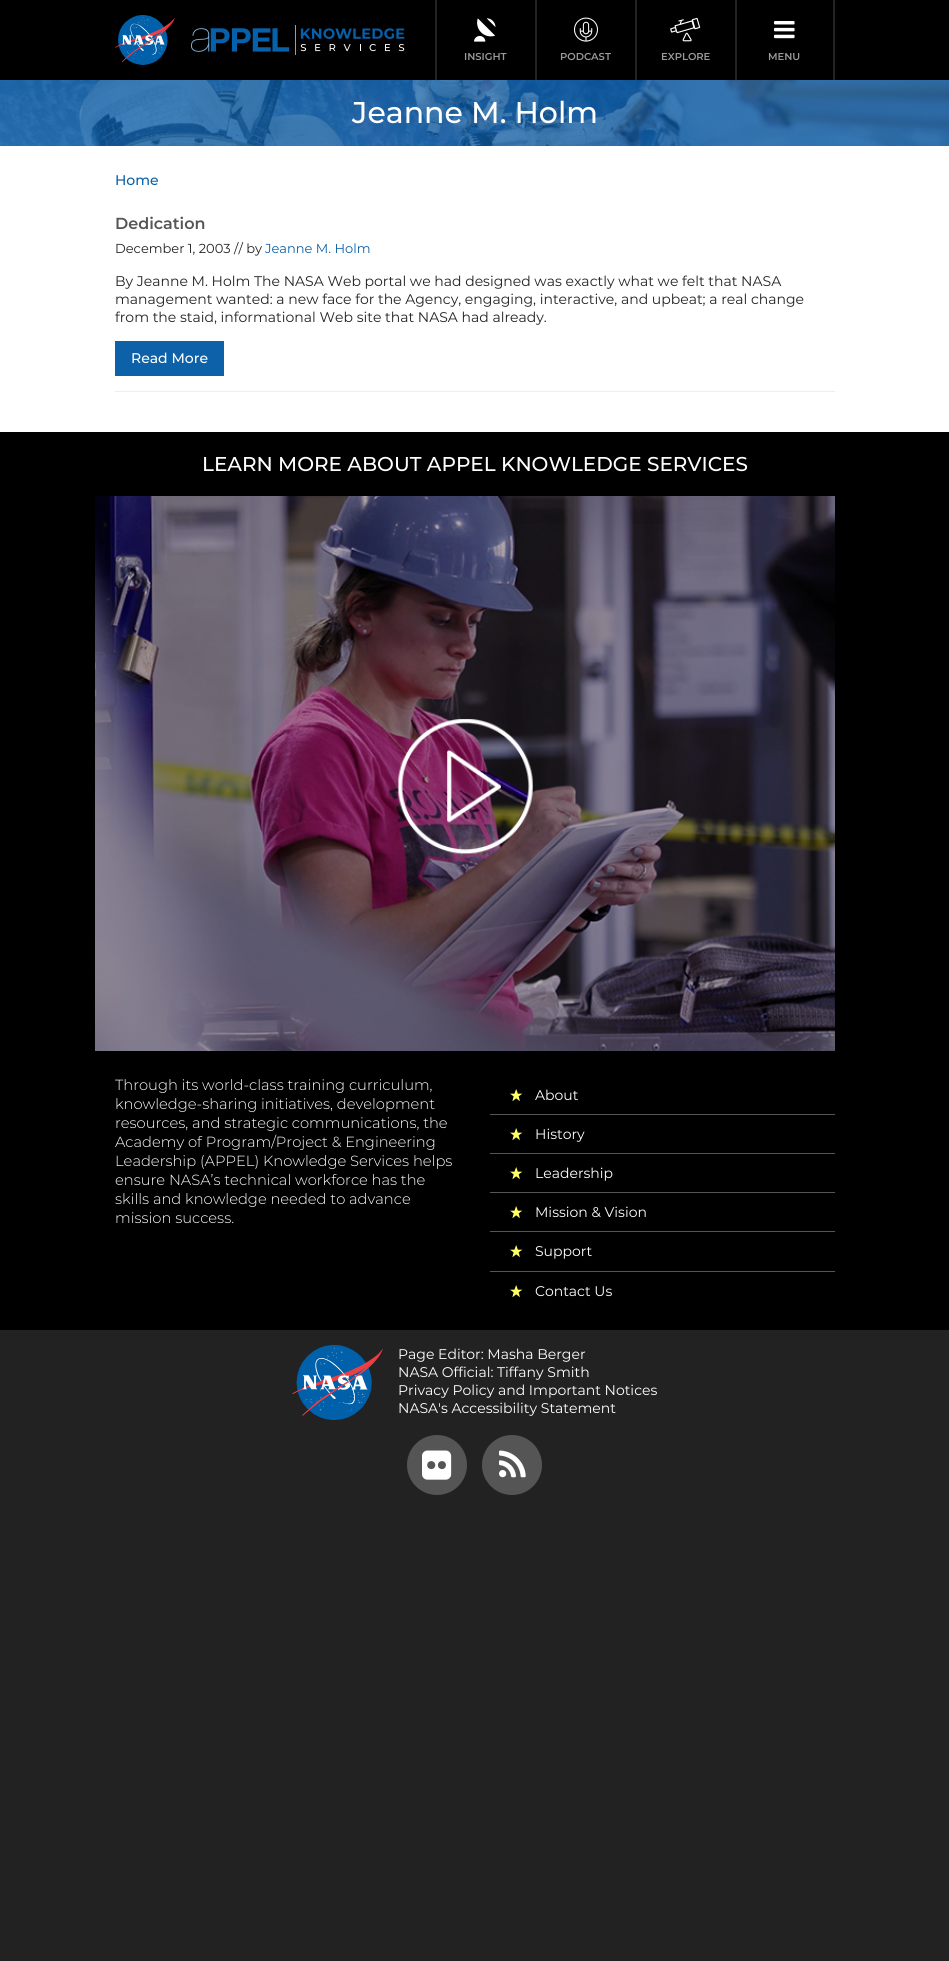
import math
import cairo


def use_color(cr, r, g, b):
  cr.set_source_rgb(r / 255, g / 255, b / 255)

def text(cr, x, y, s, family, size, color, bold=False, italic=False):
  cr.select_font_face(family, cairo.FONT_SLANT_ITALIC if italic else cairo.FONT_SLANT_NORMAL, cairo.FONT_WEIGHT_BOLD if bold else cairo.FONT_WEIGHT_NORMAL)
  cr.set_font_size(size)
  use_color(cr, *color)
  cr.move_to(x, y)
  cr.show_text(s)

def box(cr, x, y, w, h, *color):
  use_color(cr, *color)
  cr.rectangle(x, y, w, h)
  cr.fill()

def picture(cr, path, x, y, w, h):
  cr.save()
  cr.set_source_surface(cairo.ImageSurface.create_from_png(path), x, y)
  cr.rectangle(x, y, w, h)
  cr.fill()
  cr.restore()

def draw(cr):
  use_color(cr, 34, 34, 34)
  cr.paint()
  box(cr, 0, 0, 949, 80, 0, 0, 0)
  picture(cr, "img_01.png", 115, 15, 60, 50)
  picture(cr, "img_02.png", 191, 25, 214, 30)
  box(cr, 435, 0, 2, 80, 34, 34, 34)
  picture(cr, "img_03.png", 474, 18, 22, 24)
  box(cr, 535, 0, 2, 80, 34, 34, 34)
  picture(cr, "img_04.png", 574, 17, 24, 25)
  box(cr, 635, 0, 2, 80, 34, 34, 34)
  picture(cr, "img_05.png", 670, 17, 31, 25)
  box(cr, 833, 0, 2, 80, 34, 34, 34)
  box(cr, 735, 0, 2, 80, 34, 34, 34)
  picture(cr, "img_06.png", 774, 21, 21, 18)
  box(cr, 0, 146, 949, 286, 255, 255, 255)
  picture(cr, "img_07.png", 0, 80, 949, 66)
  box(cr, 115, 391, 720, 1, 238, 238, 238)
  box(cr, 115, 341, 109, 35, 13, 97, 168)
  box(cr, 0, 432, 949, 898, 0, 0, 0)
  picture(cr, "img_08.png", 95, 496, 740, 555)
  box(cr, 490, 1114, 345, 1, 85, 85, 85)
  picture(cr, "img_09.png", 510, 1089, 13, 13)
  box(cr, 490, 1153, 345, 1, 85, 85, 85)
  picture(cr, "img_09.png", 510, 1128, 13, 13)
  box(cr, 490, 1192, 345, 1, 85, 85, 85)
  picture(cr, "img_09.png", 510, 1167, 13, 13)
  box(cr, 490, 1231, 345, 1, 85, 85, 85)
  picture(cr, "img_09.png", 510, 1206, 13, 13)
  box(cr, 490, 1271, 345, 1, 85, 85, 85)
  picture(cr, "img_09.png", 510, 1245, 13, 13)
  picture(cr, "img_09.png", 510, 1285, 13, 13)
  picture(cr, "img_10.png", 292, 1345, 91, 75)
  cr.arc(437, 1465, 30, 0, 2 * math.pi)
  cr.fill()
  picture(cr, "img_11.png", 422, 1450, 30, 30)
  cr.arc(512, 1465, 30, 0, 2 * math.pi)
  cr.fill()
  picture(cr, "img_12.png", 499, 1450, 27, 28)
  text(cr, 464, 60, "INSIGHT", "Montserrat SemiBold", 10, (153, 153, 153))
  text(cr, 560, 60, "PODCAST", "Montserrat SemiBold", 10, (153, 153, 153))
  text(cr, 661, 60, "EXPLORE", "Montserrat SemiBold", 10, (153, 153, 153))
  text(cr, 768, 60, "MENU", "Montserrat SemiBold", 10, (153, 153, 153))
  text(cr, 352, 123, "Jeanne M. Holm", "Montserrat Medium", 30, (255, 255, 255))
  text(cr, 115, 185, "Home", "Montserrat Medium", 14, (13, 97, 168))
  text(cr, 115, 229, "Dedication", "Montserrat SemiBold", 16, (85, 85, 85))
  text(cr, 115, 253, "December 1, 2003 // by", "Montserrat", 13, (34, 34, 34))
  text(cr, 265, 253, "Jeanne M. Holm", "Montserrat", 13, (13, 97, 168))
  text(cr, 115, 286, "By Jeanne M. Holm The NASA Web portal we had designed was exactly what we felt that NASA", "Montserrat", 14, (34, 34, 34))
  text(cr, 115, 304, "management wanted: a new face for the Agency, engaging, interactive, and upbeat; a real change", "Montserrat", 14, (34, 34, 34))
  text(cr, 115, 322, "from the staid, informational Web site that NASA had already.", "Montserrat", 14, (34, 34, 34))
  text(cr, 131, 363, "Read More", "Montserrat Medium", 14, (255, 255, 255))
  text(cr, 202, 471, "LEARN MORE ABOUT APPEL KNOWLEDGE SERVICES", "Montserrat Medium", 20, (255, 255, 255))
  text(cr, 115, 1090, "Through its world-class training curriculum,", "Montserrat Light", 14.7, (255, 255, 255))
  text(cr, 115, 1109, "knowledge-sharing initiatives, development", "Montserrat Light", 14.7, (255, 255, 255))
  text(cr, 115, 1128, "resources, and strategic communications, the", "Montserrat Light", 14.7, (255, 255, 255))
  text(cr, 115, 1147, "Academy of Program/Project & Engineering", "Montserrat Light", 14.7, (255, 255, 255))
  text(cr, 115, 1166, "Leadership (APPEL) Knowledge Services helps", "Montserrat Light", 14.7, (255, 255, 255))
  text(cr, 115, 1185, "ensure NASA’s technical workforce has the", "Montserrat Light", 14.7, (255, 255, 255))
  text(cr, 115, 1204, "skills and knowledge needed to advance", "Montserrat Light", 14.7, (255, 255, 255))
  text(cr, 115, 1223, "mission success.", "Montserrat Light", 14.7, (255, 255, 255))
  text(cr, 535, 1100, "About", "Montserrat", 14, (255, 255, 255))
  text(cr, 535, 1139, "History", "Montserrat", 14, (255, 255, 255))
  text(cr, 535, 1178, "Leadership", "Montserrat", 14, (255, 255, 255))
  text(cr, 535, 1217, "Mission & Vision", "Montserrat", 14, (255, 255, 255))
  text(cr, 535, 1256, "Support", "Montserrat", 14, (255, 255, 255))
  text(cr, 535, 1296, "Contact Us", "Montserrat", 14, (255, 255, 255))
  text(cr, 398, 1359, "Page Editor: Masha Berger", "Montserrat", 14, (255, 255, 255))
  text(cr, 398, 1377, "NASA Official: Tiffany Smith", "Montserrat", 14, (255, 255, 255))
  text(cr, 398, 1395, "Privacy Policy and Important Notices", "Montserrat", 14, (255, 255, 255))
  text(cr, 398, 1413, "NASA's Accessibility Statement", "Montserrat", 14, (255, 255, 255))


surface = cairo.ImageSurface(cairo.FORMAT_RGB24, 949, 1961)
cr = cairo.Context(surface)
options = cairo.FontOptions()
options.set_hint_metrics(cairo.HINT_METRICS_OFF)
options.set_hint_style(cairo.HINT_STYLE_NONE)
cr.set_font_options(options)
cr.set_miter_limit(4)
draw(cr)
surface.write_to_png("out.png")
